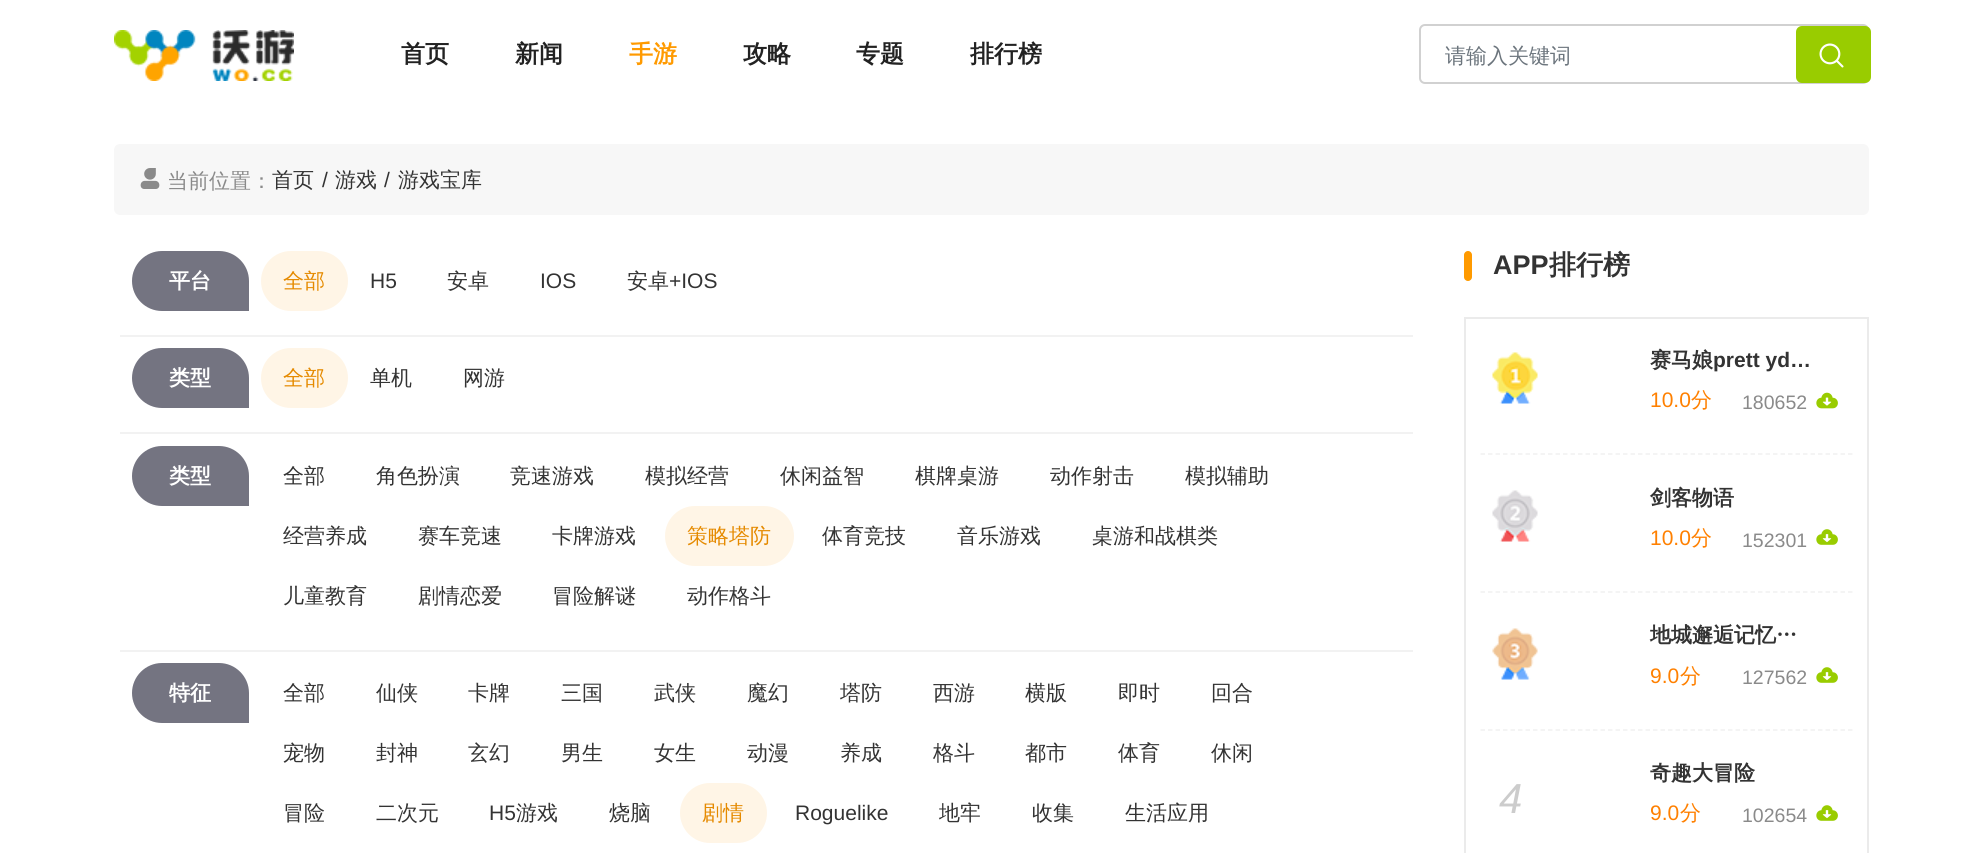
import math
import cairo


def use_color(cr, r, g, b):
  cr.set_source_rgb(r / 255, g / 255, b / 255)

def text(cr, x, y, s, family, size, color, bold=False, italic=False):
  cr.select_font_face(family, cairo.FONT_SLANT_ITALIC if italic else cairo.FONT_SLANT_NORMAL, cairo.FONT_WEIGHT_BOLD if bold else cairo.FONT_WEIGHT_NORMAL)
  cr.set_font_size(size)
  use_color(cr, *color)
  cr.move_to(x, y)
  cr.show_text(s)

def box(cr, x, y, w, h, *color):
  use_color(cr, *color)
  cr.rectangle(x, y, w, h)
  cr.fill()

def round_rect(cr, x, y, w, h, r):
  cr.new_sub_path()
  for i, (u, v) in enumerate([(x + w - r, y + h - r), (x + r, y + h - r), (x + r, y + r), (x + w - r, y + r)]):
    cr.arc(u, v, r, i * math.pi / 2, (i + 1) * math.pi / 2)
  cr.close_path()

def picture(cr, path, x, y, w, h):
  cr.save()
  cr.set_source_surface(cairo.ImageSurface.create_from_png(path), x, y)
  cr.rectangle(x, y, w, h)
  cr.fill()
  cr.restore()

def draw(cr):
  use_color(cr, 255, 255, 255)
  cr.paint()
  picture(cr, "img_01.png", 114, 30, 180, 51)
  round_rect(cr, 1420, 25, 448, 58, 5)
  use_color(cr, 209, 209, 209)
  cr.stroke()
  use_color(cr, 153, 204, 0)
  round_rect(cr, 1796, 26, 75, 57, 6)
  cr.fill()
  picture(cr, "img_02.png", 1819, 43, 25, 25)
  use_color(cr, 247, 247, 247)
  round_rect(cr, 114, 144, 1755, 71, 6)
  cr.fill()
  picture(cr, "img_03.png", 140, 168, 20, 21)
  box(cr, 120, 335, 1293, 2, 242, 242, 242)
  use_color(cr, 116, 116, 129)
  cr.new_path()
  cr.move_to(162, 251)
  cr.line_to(219, 251)
  cr.curve_to(235.5, 251, 249, 264.5, 249, 281)
  cr.line_to(249, 311)
  cr.line_to(162, 311)
  cr.curve_to(145.5, 311, 132, 297.5, 132, 281)
  cr.curve_to(132, 264.5, 145.5, 251, 162, 251)
  cr.close_path()
  cr.fill()
  use_color(cr, 255, 245, 230)
  round_rect(cr, 261, 251, 87, 60, 30)
  cr.fill()
  box(cr, 120, 432, 1293, 2, 242, 242, 242)
  use_color(cr, 116, 116, 129)
  cr.new_path()
  cr.move_to(162, 348)
  cr.line_to(219, 348)
  cr.curve_to(235.5, 348, 249, 361.5, 249, 378)
  cr.line_to(249, 408)
  cr.line_to(162, 408)
  cr.curve_to(145.5, 408, 132, 394.5, 132, 378)
  cr.curve_to(132, 361.5, 145.5, 348, 162, 348)
  cr.close_path()
  cr.fill()
  use_color(cr, 255, 245, 230)
  round_rect(cr, 261, 348, 87, 60, 30)
  cr.fill()
  box(cr, 120, 650, 1293, 2, 242, 242, 242)
  use_color(cr, 116, 116, 129)
  cr.new_path()
  cr.move_to(162, 446)
  cr.line_to(219, 446)
  cr.curve_to(235.5, 446, 249, 459.5, 249, 476)
  cr.line_to(249, 506)
  cr.line_to(162, 506)
  cr.curve_to(145.5, 506, 132, 492.5, 132, 476)
  cr.curve_to(132, 459.5, 145.5, 446, 162, 446)
  cr.close_path()
  cr.fill()
  use_color(cr, 255, 245, 230)
  round_rect(cr, 665, 506, 129, 60, 30)
  cr.fill()
  use_color(cr, 116, 116, 129)
  cr.new_path()
  cr.move_to(162, 663)
  cr.line_to(219, 663)
  cr.curve_to(235.5, 663, 249, 676.5, 249, 693)
  cr.line_to(249, 723)
  cr.line_to(162, 723)
  cr.curve_to(145.5, 723, 132, 709.5, 132, 693)
  cr.curve_to(132, 676.5, 145.5, 663, 162, 663)
  cr.close_path()
  cr.fill()
  use_color(cr, 255, 245, 230)
  round_rect(cr, 680, 783, 87, 60, 30)
  cr.fill()
  use_color(cr, 255, 154, 0)
  round_rect(cr, 1464, 251, 8, 30, 4)
  cr.fill()
  cr.rectangle(1465, 318, 403, 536)
  use_color(cr, 235, 235, 235)
  cr.stroke()
  cr.new_path()
  cr.move_to(1480.5, 454)
  cr.line_to(1852.5, 454)
  use_color(cr, 241, 241, 241)
  cr.set_line_width(1.5)
  cr.set_dash([4.5, 3])
  cr.stroke()
  picture(cr, "img_04.png", 1492, 352, 46, 52)
  picture(cr, "img_05.png", 1816, 392, 22, 17)
  cr.new_path()
  cr.move_to(1480.5, 592)
  cr.line_to(1852.5, 592)
  cr.stroke()
  picture(cr, "img_06.png", 1492, 490, 46, 52)
  picture(cr, "img_07.png", 1816, 529, 22, 16)
  cr.new_path()
  cr.move_to(1480.5, 730)
  cr.line_to(1852.5, 730)
  cr.stroke()
  picture(cr, "img_08.png", 1492, 628, 46, 52)
  picture(cr, "img_07.png", 1816, 667, 22, 16)
  picture(cr, "img_07.png", 1816, 805, 22, 16)
  text(cr, 401, 62, "首页", "WenQuanYi Zen Hei", 24, (34, 34, 34), bold=True)
  text(cr, 515, 62, "新闻", "WenQuanYi Zen Hei", 24, (34, 34, 34), bold=True)
  text(cr, 629, 62, "手游", "WenQuanYi Zen Hei", 24, (255, 154, 0), bold=True)
  text(cr, 743, 62, "攻略", "WenQuanYi Zen Hei", 24, (34, 34, 34), bold=True)
  text(cr, 856, 62, "专题", "WenQuanYi Zen Hei", 24, (34, 34, 34), bold=True)
  text(cr, 970, 62, "排行榜", "WenQuanYi Zen Hei", 24, (34, 34, 34), bold=True)
  text(cr, 1445, 63, "请输入关键词", "WenQuanYi Zen Hei Medium", 21, (108, 117, 125))
  text(cr, 167, 188, "当前位置：", "WenQuanYi Zen Hei Medium", 21, (138, 138, 138))
  text(cr, 272, 187, "首页", "WenQuanYi Zen Hei Medium", 21, (51, 51, 51))
  text(cr, 322, 187, "/", "Liberation Sans", 21, (51, 51, 51))
  text(cr, 335, 187, "游戏", "WenQuanYi Zen Hei Medium", 21, (51, 51, 51))
  text(cr, 384, 187, "/", "Liberation Sans", 21, (51, 51, 51))
  text(cr, 398, 187, "游戏宝库", "WenQuanYi Zen Hei Medium", 21, (51, 51, 51))
  text(cr, 169, 288, "平台", "WenQuanYi Zen Hei", 21, (255, 255, 255), bold=True)
  text(cr, 283, 288, "全部", "WenQuanYi Zen Hei Medium", 21, (229, 138, 0))
  text(cr, 370, 288, "H5", "Liberation Sans", 21, (51, 51, 51))
  text(cr, 447, 288, "安卓", "WenQuanYi Zen Hei Medium", 21, (51, 51, 51))
  text(cr, 540, 288, "IOS", "Liberation Sans", 21, (51, 51, 51))
  text(cr, 627, 288, "安卓", "WenQuanYi Zen Hei Medium", 21, (51, 51, 51))
  text(cr, 669, 288, "+IOS", "Liberation Sans", 21, (51, 51, 51))
  text(cr, 169, 385, "类型", "WenQuanYi Zen Hei", 21, (255, 255, 255), bold=True)
  text(cr, 283, 385, "全部", "WenQuanYi Zen Hei Medium", 21, (229, 138, 0))
  text(cr, 370, 385, "单机", "WenQuanYi Zen Hei Medium", 21, (51, 51, 51))
  text(cr, 463, 385, "网游", "WenQuanYi Zen Hei Medium", 21, (51, 51, 51))
  text(cr, 169, 483, "类型", "WenQuanYi Zen Hei", 21, (255, 255, 255), bold=True)
  text(cr, 283, 483, "全部", "WenQuanYi Zen Hei Medium", 21, (51, 51, 51))
  text(cr, 376, 483, "角色扮演", "WenQuanYi Zen Hei Medium", 21, (51, 51, 51))
  text(cr, 510, 483, "竞速游戏", "WenQuanYi Zen Hei Medium", 21, (51, 51, 51))
  text(cr, 645, 483, "模拟经营", "WenQuanYi Zen Hei Medium", 21, (51, 51, 51))
  text(cr, 780, 483, "休闲益智", "WenQuanYi Zen Hei Medium", 21, (51, 51, 51))
  text(cr, 915, 483, "棋牌桌游", "WenQuanYi Zen Hei Medium", 21, (51, 51, 51))
  text(cr, 1050, 483, "动作射击", "WenQuanYi Zen Hei Medium", 21, (51, 51, 51))
  text(cr, 1185, 483, "模拟辅助", "WenQuanYi Zen Hei Medium", 21, (51, 51, 51))
  text(cr, 283, 543, "经营养成", "WenQuanYi Zen Hei Medium", 21, (51, 51, 51))
  text(cr, 418, 543, "赛车竞速", "WenQuanYi Zen Hei Medium", 21, (51, 51, 51))
  text(cr, 552, 543, "卡牌游戏", "WenQuanYi Zen Hei Medium", 21, (51, 51, 51))
  text(cr, 687, 543, "策略塔防", "WenQuanYi Zen Hei Medium", 21, (229, 138, 0))
  text(cr, 822, 543, "体育竞技", "WenQuanYi Zen Hei Medium", 21, (51, 51, 51))
  text(cr, 957, 543, "音乐游戏", "WenQuanYi Zen Hei Medium", 21, (51, 51, 51))
  text(cr, 1092, 543, "桌游和战棋类", "WenQuanYi Zen Hei Medium", 21, (51, 51, 51))
  text(cr, 283, 603, "儿童教育", "WenQuanYi Zen Hei Medium", 21, (51, 51, 51))
  text(cr, 418, 603, "剧情恋爱", "WenQuanYi Zen Hei Medium", 21, (51, 51, 51))
  text(cr, 552, 603, "冒险解谜", "WenQuanYi Zen Hei Medium", 21, (51, 51, 51))
  text(cr, 687, 603, "动作格斗", "WenQuanYi Zen Hei Medium", 21, (51, 51, 51))
  text(cr, 169, 700, "特征", "WenQuanYi Zen Hei", 21, (255, 255, 255), bold=True)
  text(cr, 283, 700, "全部", "WenQuanYi Zen Hei Medium", 21, (51, 51, 51))
  text(cr, 376, 700, "仙侠", "WenQuanYi Zen Hei Medium", 21, (51, 51, 51))
  text(cr, 468, 700, "卡牌", "WenQuanYi Zen Hei Medium", 21, (51, 51, 51))
  text(cr, 561, 700, "三国", "WenQuanYi Zen Hei Medium", 21, (51, 51, 51))
  text(cr, 654, 700, "武侠", "WenQuanYi Zen Hei Medium", 21, (51, 51, 51))
  text(cr, 747, 700, "魔幻", "WenQuanYi Zen Hei Medium", 21, (51, 51, 51))
  text(cr, 840, 700, "塔防", "WenQuanYi Zen Hei Medium", 21, (51, 51, 51))
  text(cr, 933, 700, "西游", "WenQuanYi Zen Hei Medium", 21, (51, 51, 51))
  text(cr, 1025, 700, "横版", "WenQuanYi Zen Hei Medium", 21, (51, 51, 51))
  text(cr, 1118, 700, "即时", "WenQuanYi Zen Hei Medium", 21, (51, 51, 51))
  text(cr, 1211, 700, "回合", "WenQuanYi Zen Hei Medium", 21, (51, 51, 51))
  text(cr, 283, 760, "宠物", "WenQuanYi Zen Hei Medium", 21, (51, 51, 51))
  text(cr, 376, 760, "封神", "WenQuanYi Zen Hei Medium", 21, (51, 51, 51))
  text(cr, 468, 760, "玄幻", "WenQuanYi Zen Hei Medium", 21, (51, 51, 51))
  text(cr, 561, 760, "男生", "WenQuanYi Zen Hei Medium", 21, (51, 51, 51))
  text(cr, 654, 760, "女生", "WenQuanYi Zen Hei Medium", 21, (51, 51, 51))
  text(cr, 747, 760, "动漫", "WenQuanYi Zen Hei Medium", 21, (51, 51, 51))
  text(cr, 840, 760, "养成", "WenQuanYi Zen Hei Medium", 21, (51, 51, 51))
  text(cr, 933, 760, "格斗", "WenQuanYi Zen Hei Medium", 21, (51, 51, 51))
  text(cr, 1025, 760, "都市", "WenQuanYi Zen Hei Medium", 21, (51, 51, 51))
  text(cr, 1118, 760, "体育", "WenQuanYi Zen Hei Medium", 21, (51, 51, 51))
  text(cr, 1211, 760, "休闲", "WenQuanYi Zen Hei Medium", 21, (51, 51, 51))
  text(cr, 283, 820, "冒险", "WenQuanYi Zen Hei Medium", 21, (51, 51, 51))
  text(cr, 376, 820, "二次元", "WenQuanYi Zen Hei Medium", 21, (51, 51, 51))
  text(cr, 489, 820, "H5", "Liberation Sans", 21, (51, 51, 51))
  text(cr, 516, 820, "游戏", "WenQuanYi Zen Hei Medium", 21, (51, 51, 51))
  text(cr, 609, 820, "烧脑", "WenQuanYi Zen Hei Medium", 21, (51, 51, 51))
  text(cr, 702, 820, "剧情", "WenQuanYi Zen Hei Medium", 21, (229, 138, 0))
  text(cr, 795, 820, "Roguelike", "Liberation Sans", 21, (51, 51, 51))
  text(cr, 939, 820, "地牢", "WenQuanYi Zen Hei Medium", 21, (51, 51, 51))
  text(cr, 1032, 820, "收集", "WenQuanYi Zen Hei Medium", 21, (51, 51, 51))
  text(cr, 1125, 820, "生活应用", "WenQuanYi Zen Hei Medium", 21, (51, 51, 51))
  text(cr, 1493, 274, "APP", "Liberation Sans", 27, (51, 51, 51), bold=True)
  text(cr, 1549, 274, "排行榜", "WenQuanYi Zen Hei", 27, (51, 51, 51), bold=True)
  text(cr, 1650, 367, "赛马娘", "WenQuanYi Zen Hei", 21, (51, 51, 51), bold=True)
  text(cr, 1713, 367, "prett yd…", "Liberation Sans", 21, (51, 51, 51), bold=True)
  text(cr, 1650, 407, "10.0", "Liberation Sans", 21, (255, 128, 0))
  text(cr, 1691, 407, "分", "WenQuanYi Zen Hei Medium", 21, (255, 128, 0))
  text(cr, 1742, 409, "180652", "Liberation Sans", 19.5, (138, 138, 138))
  text(cr, 1650, 505, "剑客物语", "WenQuanYi Zen Hei", 21, (51, 51, 51), bold=True)
  text(cr, 1650, 545, "10.0", "Liberation Sans", 21, (255, 128, 0))
  text(cr, 1691, 545, "分", "WenQuanYi Zen Hei Medium", 21, (255, 128, 0))
  text(cr, 1742, 547, "152301", "Liberation Sans", 19.5, (138, 138, 138))
  text(cr, 1650, 642, "地城邂逅记忆…", "WenQuanYi Zen Hei", 21, (51, 51, 51), bold=True)
  text(cr, 1650, 683, "9.0", "Liberation Sans", 21, (255, 128, 0))
  text(cr, 1680, 683, "分", "WenQuanYi Zen Hei Medium", 21, (255, 128, 0))
  text(cr, 1742, 684, "127562", "Liberation Sans", 19.5, (138, 138, 138))
  text(cr, 1499, 813, "4", "Liberation Sans", 42, (204, 204, 204), italic=True)
  text(cr, 1650, 780, "奇趣大冒险", "WenQuanYi Zen Hei", 21, (51, 51, 51), bold=True)
  text(cr, 1650, 820, "9.0", "Liberation Sans", 21, (255, 128, 0))
  text(cr, 1680, 820, "分", "WenQuanYi Zen Hei Medium", 21, (255, 128, 0))
  text(cr, 1742, 822, "102654", "Liberation Sans", 19.5, (138, 138, 138))


surface = cairo.ImageSurface(cairo.FORMAT_RGB24, 1981, 853)
cr = cairo.Context(surface)
options = cairo.FontOptions()
options.set_hint_metrics(cairo.HINT_METRICS_OFF)
options.set_hint_style(cairo.HINT_STYLE_NONE)
cr.set_font_options(options)
cr.set_miter_limit(4)
draw(cr)
surface.write_to_png("out.png")
